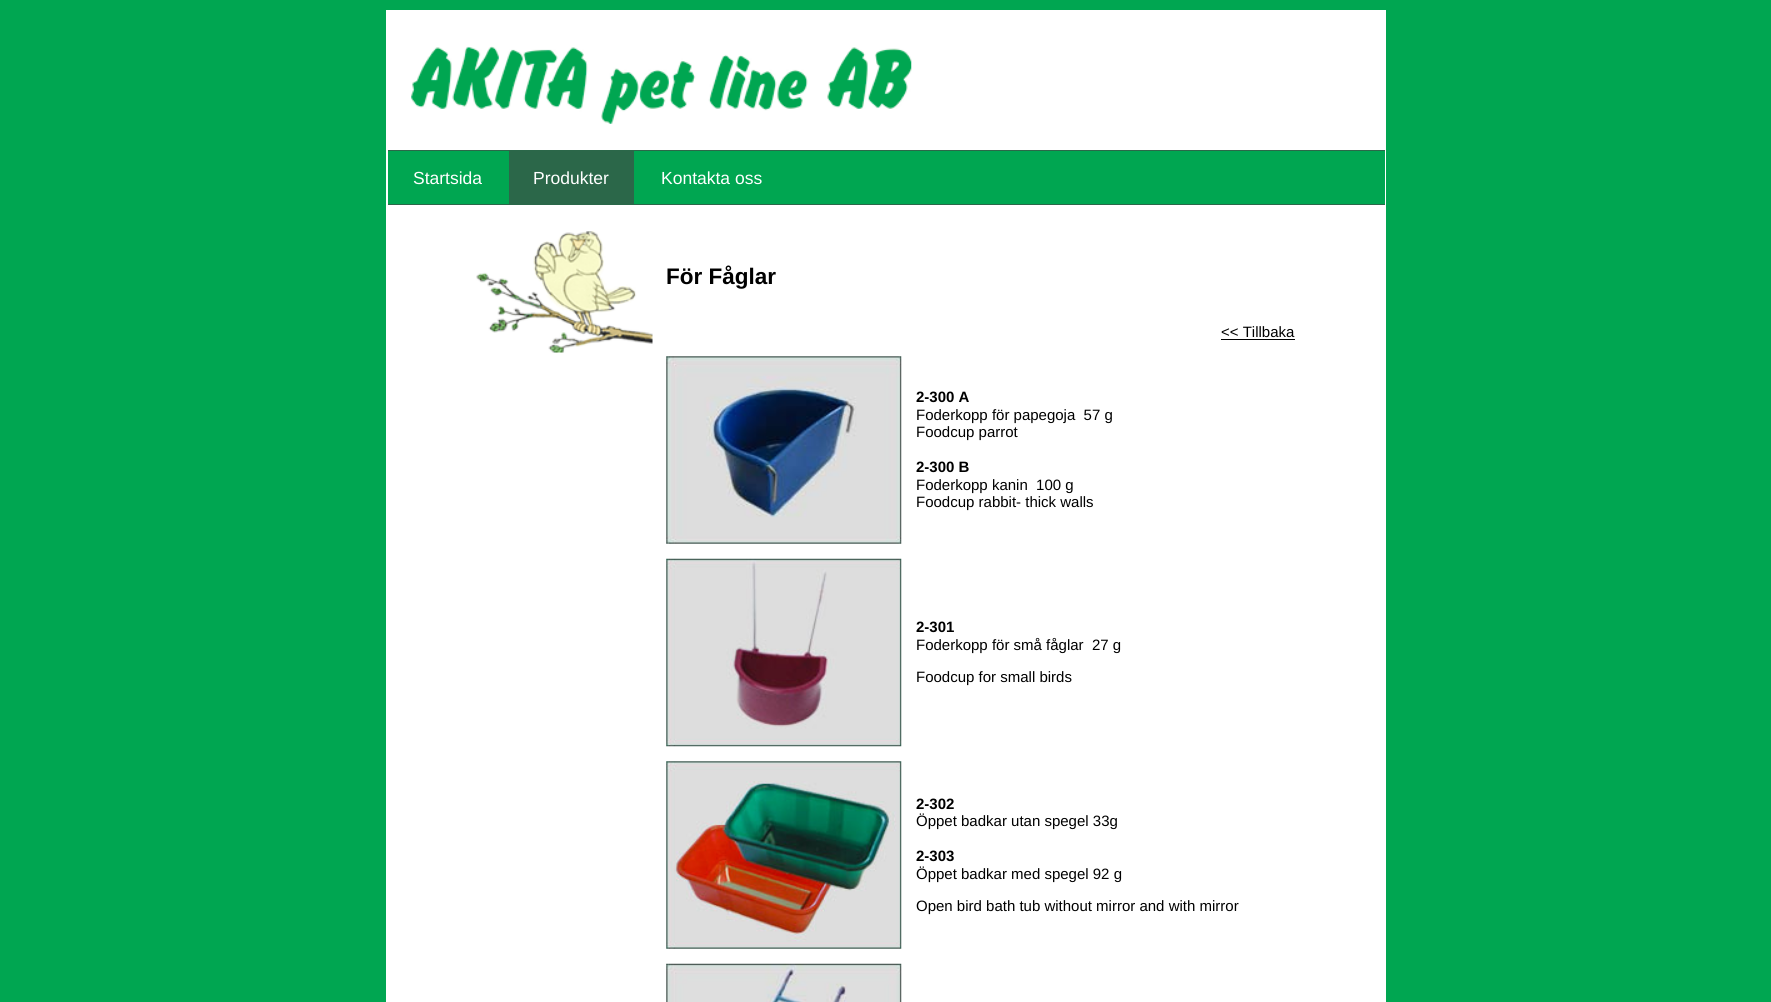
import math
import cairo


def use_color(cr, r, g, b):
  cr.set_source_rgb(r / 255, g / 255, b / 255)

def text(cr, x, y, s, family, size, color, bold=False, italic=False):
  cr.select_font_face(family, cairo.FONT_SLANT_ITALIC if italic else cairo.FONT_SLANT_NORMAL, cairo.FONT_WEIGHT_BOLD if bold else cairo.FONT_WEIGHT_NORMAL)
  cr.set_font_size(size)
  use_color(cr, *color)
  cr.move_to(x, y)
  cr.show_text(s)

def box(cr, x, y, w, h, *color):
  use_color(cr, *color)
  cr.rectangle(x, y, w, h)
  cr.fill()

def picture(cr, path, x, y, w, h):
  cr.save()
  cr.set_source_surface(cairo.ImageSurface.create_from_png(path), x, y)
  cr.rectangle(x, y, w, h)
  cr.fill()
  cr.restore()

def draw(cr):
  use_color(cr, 0, 166, 81)
  cr.paint()
  box(cr, 386, 10, 1000, 992, 255, 255, 255)
  picture(cr, "img_01.png", 411, 46, 501, 78)
  box(cr, 388, 151, 997, 53, 0, 166, 81)
  box(cr, 388, 150, 997, 1, 43, 103, 73)
  box(cr, 388, 204, 997, 1, 43, 103, 73)
  box(cr, 509, 151, 125, 53, 43, 103, 73)
  picture(cr, "img_02.png", 476, 231, 177, 122)
  box(cr, 1221, 339, 74, 1, 0, 0, 0)
  picture(cr, "img_03.png", 666, 356, 236, 188)
  picture(cr, "img_04.png", 666, 558, 236, 189)
  picture(cr, "img_05.png", 666, 761, 236, 188)
  picture(cr, "img_06.png", 666, 963, 236, 39)
  text(cr, 413, 184, "Startsida", "Liberation Sans", 17.5, (255, 255, 255))
  text(cr, 533, 184, "Produkter", "Liberation Sans", 17.5, (255, 255, 255))
  text(cr, 661, 184, "Kontakta oss", "Liberation Sans", 17.5, (255, 255, 255))
  text(cr, 666, 284, "För Fåglar", "Liberation Sans", 22.5, (0, 0, 0), bold=True)
  text(cr, 1221, 337, "<< Tillbaka", "Liberation Sans", 15, (0, 0, 0))
  text(cr, 916, 402, "2-300 A", "Liberation Sans", 15, (0, 0, 0), bold=True)
  text(cr, 916, 420, "Foderkopp för papegoja  57 g", "Liberation Sans", 15, (0, 0, 0))
  text(cr, 916, 437, "Foodcup parrot", "Liberation Sans", 15, (0, 0, 0))
  text(cr, 916, 472, "2-300 B", "Liberation Sans", 15, (0, 0, 0), bold=True)
  text(cr, 916, 490, "Foderkopp kanin  100 g", "Liberation Sans", 15, (0, 0, 0))
  text(cr, 916, 507, "Foodcup rabbit- thick walls", "Liberation Sans", 15, (0, 0, 0))
  text(cr, 916, 632, "2-301", "Liberation Sans", 15, (0, 0, 0), bold=True)
  text(cr, 916, 650, "Foderkopp för små fåglar  27 g", "Liberation Sans", 15, (0, 0, 0))
  text(cr, 916, 682, "Foodcup for small birds", "Liberation Sans", 15, (0, 0, 0))
  text(cr, 916, 809, "2-302", "Liberation Sans", 15, (0, 0, 0), bold=True)
  text(cr, 916, 826, "Öppet badkar utan spegel 33g", "Liberation Sans", 15, (0, 0, 0))
  text(cr, 916, 861, "2-303", "Liberation Sans", 15, (0, 0, 0), bold=True)
  text(cr, 916, 879, "Öppet badkar med spegel 92 g", "Liberation Sans", 15, (0, 0, 0))
  text(cr, 916, 911, "Open bird bath tub without mirror and with mirror", "Liberation Sans", 15, (0, 0, 0))


surface = cairo.ImageSurface(cairo.FORMAT_RGB24, 1771, 1002)
cr = cairo.Context(surface)
options = cairo.FontOptions()
options.set_hint_metrics(cairo.HINT_METRICS_OFF)
options.set_hint_style(cairo.HINT_STYLE_NONE)
cr.set_font_options(options)
cr.set_miter_limit(4)
draw(cr)
surface.write_to_png("out.png")
